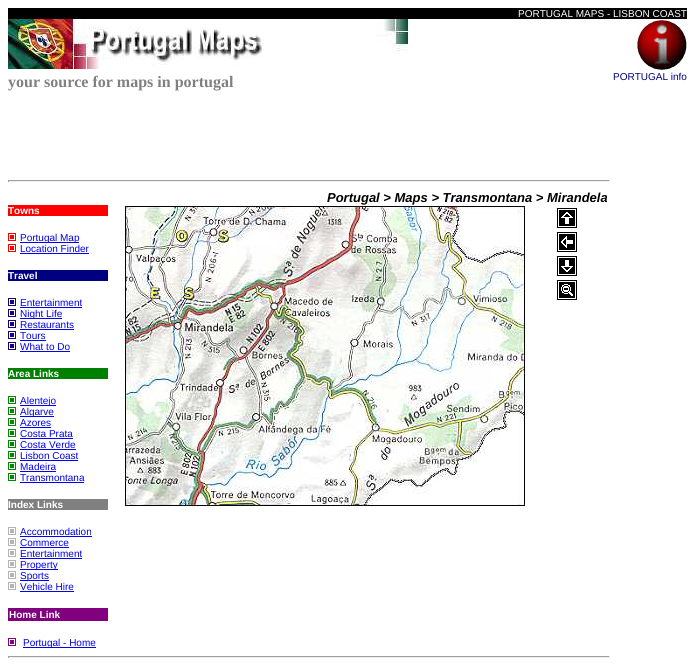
import math
import cairo


def use_color(cr, r, g, b):
  cr.set_source_rgb(r / 255, g / 255, b / 255)

def text(cr, x, y, s, family, size, color, bold=False, italic=False):
  cr.select_font_face(family, cairo.FONT_SLANT_ITALIC if italic else cairo.FONT_SLANT_NORMAL, cairo.FONT_WEIGHT_BOLD if bold else cairo.FONT_WEIGHT_NORMAL)
  cr.set_font_size(size)
  use_color(cr, *color)
  cr.move_to(x, y)
  cr.show_text(s)

def box(cr, x, y, w, h, *color):
  use_color(cr, *color)
  cr.rectangle(x, y, w, h)
  cr.fill()

def picture(cr, path, x, y, w, h):
  cr.save()
  cr.set_source_surface(cairo.ImageSurface.create_from_png(path), x, y)
  cr.rectangle(x, y, w, h)
  cr.fill()
  cr.restore()

def draw(cr):
  use_color(cr, 255, 255, 255)
  cr.paint()
  box(cr, 8, 8, 679, 11, 0, 0, 0)
  picture(cr, "img_01.png", 8, 19, 400, 50)
  picture(cr, "img_02.png", 637, 20, 50, 50)
  box(cr, 8, 180, 602, 1, 159, 159, 159)
  box(cr, 609, 180, 1, 2, 238, 238, 238)
  box(cr, 8, 181, 602, 1, 238, 238, 238)
  box(cr, 8, 180, 1, 2, 159, 159, 159)
  box(cr, 8, 205, 100, 11, 255, 0, 0)
  picture(cr, "img_03.png", 8, 233, 8, 8)
  box(cr, 20, 242, 59, 1, 0, 0, 238)
  picture(cr, "img_03.png", 8, 244, 8, 8)
  box(cr, 20, 253, 69, 1, 0, 0, 238)
  box(cr, 8, 270, 100, 11, 0, 0, 128)
  picture(cr, "img_04.png", 8, 298, 8, 8)
  box(cr, 20, 307, 62, 1, 0, 0, 238)
  picture(cr, "img_04.png", 8, 309, 8, 8)
  box(cr, 20, 318, 42, 1, 0, 0, 238)
  picture(cr, "img_04.png", 8, 320, 8, 8)
  box(cr, 20, 329, 54, 1, 0, 0, 238)
  picture(cr, "img_04.png", 8, 331, 8, 8)
  box(cr, 20, 340, 26, 1, 0, 0, 238)
  picture(cr, "img_04.png", 8, 342, 8, 8)
  box(cr, 20, 351, 50, 1, 0, 0, 238)
  box(cr, 8, 368, 100, 11, 0, 128, 0)
  picture(cr, "img_05.png", 8, 396, 8, 8)
  box(cr, 20, 405, 36, 1, 0, 0, 238)
  picture(cr, "img_05.png", 8, 407, 8, 8)
  box(cr, 20, 416, 34, 1, 0, 0, 238)
  picture(cr, "img_05.png", 8, 418, 8, 8)
  box(cr, 20, 427, 31, 1, 0, 0, 238)
  picture(cr, "img_05.png", 8, 429, 8, 8)
  box(cr, 20, 438, 53, 1, 0, 0, 238)
  picture(cr, "img_05.png", 8, 440, 8, 8)
  box(cr, 20, 449, 56, 1, 0, 0, 238)
  picture(cr, "img_05.png", 8, 451, 8, 8)
  box(cr, 20, 460, 58, 1, 0, 0, 238)
  picture(cr, "img_05.png", 8, 462, 8, 8)
  box(cr, 20, 471, 36, 1, 0, 0, 238)
  picture(cr, "img_05.png", 8, 473, 8, 8)
  box(cr, 20, 482, 64, 1, 0, 0, 238)
  box(cr, 8, 499, 100, 11, 128, 128, 128)
  picture(cr, "img_06.png", 8, 527, 8, 8)
  box(cr, 20, 536, 72, 1, 0, 0, 238)
  picture(cr, "img_06.png", 8, 538, 8, 8)
  box(cr, 20, 547, 49, 1, 0, 0, 238)
  picture(cr, "img_06.png", 8, 549, 8, 8)
  box(cr, 20, 558, 62, 1, 0, 0, 238)
  picture(cr, "img_06.png", 8, 560, 8, 8)
  box(cr, 20, 569, 38, 1, 0, 0, 238)
  picture(cr, "img_06.png", 8, 571, 8, 8)
  box(cr, 20, 580, 29, 1, 0, 0, 238)
  picture(cr, "img_06.png", 8, 582, 8, 8)
  box(cr, 20, 591, 54, 1, 0, 0, 238)
  box(cr, 8, 608, 100, 13, 128, 0, 128)
  picture(cr, "img_07.png", 8, 638, 8, 8)
  box(cr, 23, 647, 73, 1, 0, 0, 238)
  picture(cr, "img_08.png", 125, 206, 400, 300)
  picture(cr, "img_09.png", 557, 208, 20, 20)
  picture(cr, "img_10.png", 557, 232, 20, 20)
  picture(cr, "img_11.png", 557, 256, 20, 20)
  picture(cr, "img_12.png", 557, 280, 20, 20)
  box(cr, 8, 656, 602, 1, 159, 159, 159)
  box(cr, 609, 656, 1, 2, 238, 238, 238)
  box(cr, 8, 657, 602, 1, 238, 238, 238)
  box(cr, 8, 656, 1, 2, 159, 159, 159)
  text(cr, 518, 17, "PORTUGAL MAPS - LISBON COAST", "Liberation Sans", 10, (255, 255, 255))
  text(cr, 8, 87, "your source for maps in portugal", "Liberation Serif", 16, (128, 128, 128), bold=True)
  text(cr, 613, 80, "PORTUGAL info", "Liberation Sans", 10, (0, 0, 128))
  text(cr, 327, 202, "Portugal > Maps > Transmontana > Mirandela", "Liberation Sans", 13, (0, 0, 0), bold=True, italic=True)
  text(cr, 8, 214, "Towns", "Liberation Sans", 10, (255, 255, 255), bold=True)
  text(cr, 20, 241, "Portugal Map", "Liberation Sans", 10, (0, 0, 238))
  text(cr, 20, 252, "Location Finder", "Liberation Sans", 10, (0, 0, 238))
  text(cr, 8, 279, "Travel", "Liberation Sans", 10, (255, 255, 255), bold=True)
  text(cr, 20, 306, "Entertainment", "Liberation Sans", 10, (0, 0, 238))
  text(cr, 20, 317, "Night Life", "Liberation Sans", 10, (0, 0, 238))
  text(cr, 20, 328, "Restaurants", "Liberation Sans", 10, (0, 0, 238))
  text(cr, 20, 339, "Tours", "Liberation Sans", 10, (0, 0, 238))
  text(cr, 20, 350, "What to Do", "Liberation Sans", 10, (0, 0, 238))
  text(cr, 8, 377, "Area Links", "Liberation Sans", 10, (255, 255, 255), bold=True)
  text(cr, 20, 404, "Alentejo", "Liberation Sans", 10, (0, 0, 238))
  text(cr, 20, 415, "Algarve", "Liberation Sans", 10, (0, 0, 238))
  text(cr, 20, 426, "Azores", "Liberation Sans", 10, (0, 0, 238))
  text(cr, 20, 437, "Costa Prata", "Liberation Sans", 10, (0, 0, 238))
  text(cr, 20, 448, "Costa Verde", "Liberation Sans", 10, (0, 0, 238))
  text(cr, 20, 459, "Lisbon Coast", "Liberation Sans", 10, (0, 0, 238))
  text(cr, 20, 470, "Madeira", "Liberation Sans", 10, (0, 0, 238))
  text(cr, 20, 481, "Transmontana", "Liberation Sans", 10, (0, 0, 238))
  text(cr, 8, 508, "Index Links", "Liberation Sans", 10, (255, 255, 255), bold=True)
  text(cr, 20, 535, "Accommodation", "Liberation Sans", 10, (0, 0, 238))
  text(cr, 20, 546, "Commerce", "Liberation Sans", 10, (0, 0, 238))
  text(cr, 20, 557, "Entertainment", "Liberation Sans", 10, (0, 0, 238))
  text(cr, 20, 568, "Property", "Liberation Sans", 10, (0, 0, 238))
  text(cr, 20, 579, "Sports", "Liberation Sans", 10, (0, 0, 238))
  text(cr, 20, 590, "Vehicle Hire", "Liberation Sans", 10, (0, 0, 238))
  text(cr, 9, 618, "Home Link", "Liberation Sans", 10, (255, 255, 255), bold=True)
  text(cr, 23, 646, "Portugal - Home", "Liberation Sans", 10, (0, 0, 238))


surface = cairo.ImageSurface(cairo.FORMAT_RGB24, 695, 672)
cr = cairo.Context(surface)
options = cairo.FontOptions()
options.set_hint_metrics(cairo.HINT_METRICS_OFF)
options.set_hint_style(cairo.HINT_STYLE_NONE)
cr.set_font_options(options)
cr.set_miter_limit(4)
draw(cr)
surface.write_to_png("out.png")
